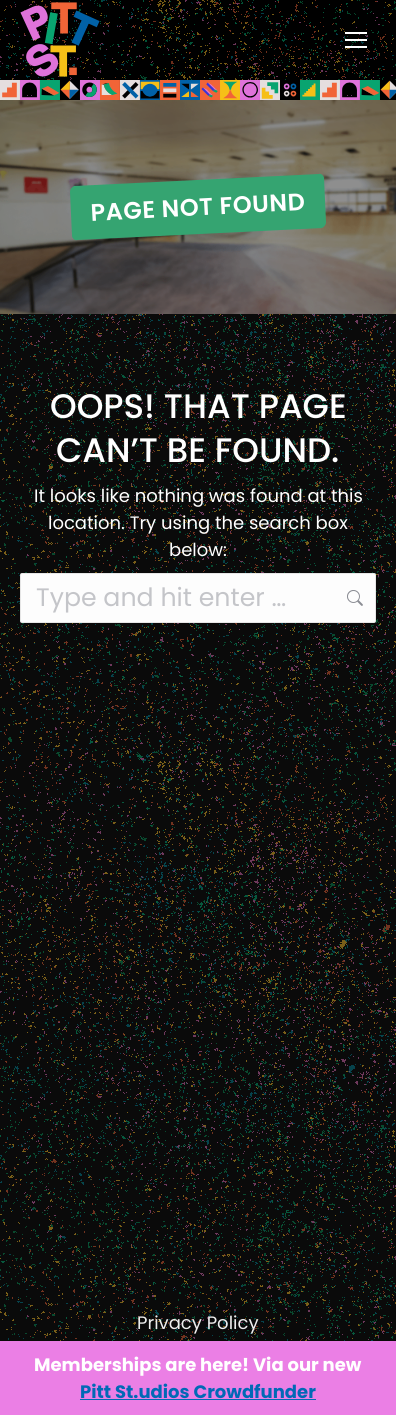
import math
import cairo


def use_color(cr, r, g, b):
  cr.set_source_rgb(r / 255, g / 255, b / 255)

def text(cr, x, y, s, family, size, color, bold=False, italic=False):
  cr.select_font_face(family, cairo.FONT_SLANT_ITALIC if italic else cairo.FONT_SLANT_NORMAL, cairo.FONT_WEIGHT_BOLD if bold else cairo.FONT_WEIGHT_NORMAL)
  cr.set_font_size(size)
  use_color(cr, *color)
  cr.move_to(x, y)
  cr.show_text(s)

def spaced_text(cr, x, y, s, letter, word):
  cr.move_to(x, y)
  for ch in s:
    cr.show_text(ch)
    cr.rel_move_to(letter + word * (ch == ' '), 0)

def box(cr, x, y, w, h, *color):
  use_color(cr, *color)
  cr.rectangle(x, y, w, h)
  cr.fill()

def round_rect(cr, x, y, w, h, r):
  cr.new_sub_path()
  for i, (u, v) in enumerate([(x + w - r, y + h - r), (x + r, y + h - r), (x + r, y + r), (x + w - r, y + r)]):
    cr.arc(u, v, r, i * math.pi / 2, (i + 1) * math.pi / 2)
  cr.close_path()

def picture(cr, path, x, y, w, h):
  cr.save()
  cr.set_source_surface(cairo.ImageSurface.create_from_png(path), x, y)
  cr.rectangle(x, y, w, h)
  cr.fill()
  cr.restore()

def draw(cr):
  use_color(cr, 10, 10, 10)
  cr.paint()
  picture(cr, "img_01.png", 0, 314, 396, 1027)
  box(cr, 0, 0, 396, 100, 0, 0, 0)
  picture(cr, "img_02.png", 0, 0, 396, 80)
  picture(cr, "img_03.png", 20, 2, 80, 75)
  box(cr, 345, 32, 22, 2, 255, 255, 255)
  box(cr, 345, 39, 22, 2, 255, 255, 255)
  box(cr, 345, 46, 22, 2, 255, 255, 255)
  picture(cr, "img_04.png", 0, 80, 396, 20)
  picture(cr, "img_05.png", 0, 100, 396, 214)
  use_color(cr, 53, 164, 113)
  cr.new_path()
  cr.move_to(74, 186)
  cr.line_to(319, 174)
  cr.curve_to(321, 173, 324, 176, 324, 178)
  cr.line_to(326, 222)
  cr.curve_to(326, 225, 324, 227, 322, 228)
  cr.line_to(77, 240)
  cr.curve_to(75, 241, 72, 238, 72, 236)
  cr.line_to(70, 192)
  cr.curve_to(70, 189, 72, 187, 74, 186)
  cr.close_path()
  cr.fill()
  use_color(cr, 253, 253, 253)
  round_rect(cr, 20, 573, 356, 50, 2)
  cr.fill()
  round_rect(cr, 20.5, 573.5, 355, 49, 1.5)
  cr.set_source_rgba(0.2, 0.2, 0.2, 0.11)
  cr.set_line_width(1)
  cr.stroke()
  picture(cr, "img_06.png", 347, 590, 16, 16)
  box(cr, 0, 1341, 396, 74, 235, 127, 229)
  box(cr, 80, 1399, 236, 1, 1, 105, 182)
  cr.select_font_face("Poppins SemiBold")
  cr.set_font_size(24)
  use_color(cr, 255, 255, 255)
  cr.save()
  cr.translate(91, 221)
  cr.rotate(-3 * math.pi / 180)
  spaced_text(cr, 0, 0, "PAGE NOT FOUND", 0.5, 0)
  cr.restore()
  text(cr, 50, 418, "OOPS! THAT PAGE", "Poppins Medium", 34, (255, 255, 255))
  text(cr, 56, 462, "CAN’T BE FOUND.", "Poppins Medium", 34, (255, 255, 255))
  text(cr, 34, 502, "It looks like nothing was found at this", "Poppins", 18, (255, 255, 255))
  text(cr, 48, 529, "location. Try using the search box", "Poppins", 18, (255, 255, 255))
  text(cr, 169, 556, "below:", "Poppins", 18, (255, 255, 255))
  text(cr, 36, 606, "Type and hit enter …", "Poppins", 25.25, (196, 197, 201))
  text(cr, 137, 1329, "Privacy Policy", "Poppins", 18, (238, 238, 238))
  text(cr, 34, 1371, "Memberships are here! Via our new", "Poppins", 18, (255, 255, 255), bold=True)
  text(cr, 80, 1398, "Pitt St.udios Crowdfunder", "Poppins", 18, (1, 105, 182), bold=True)


surface = cairo.ImageSurface(cairo.FORMAT_RGB24, 396, 1415)
cr = cairo.Context(surface)
options = cairo.FontOptions()
options.set_hint_metrics(cairo.HINT_METRICS_OFF)
options.set_hint_style(cairo.HINT_STYLE_NONE)
cr.set_font_options(options)
cr.set_miter_limit(4)
draw(cr)
surface.write_to_png("out.png")
